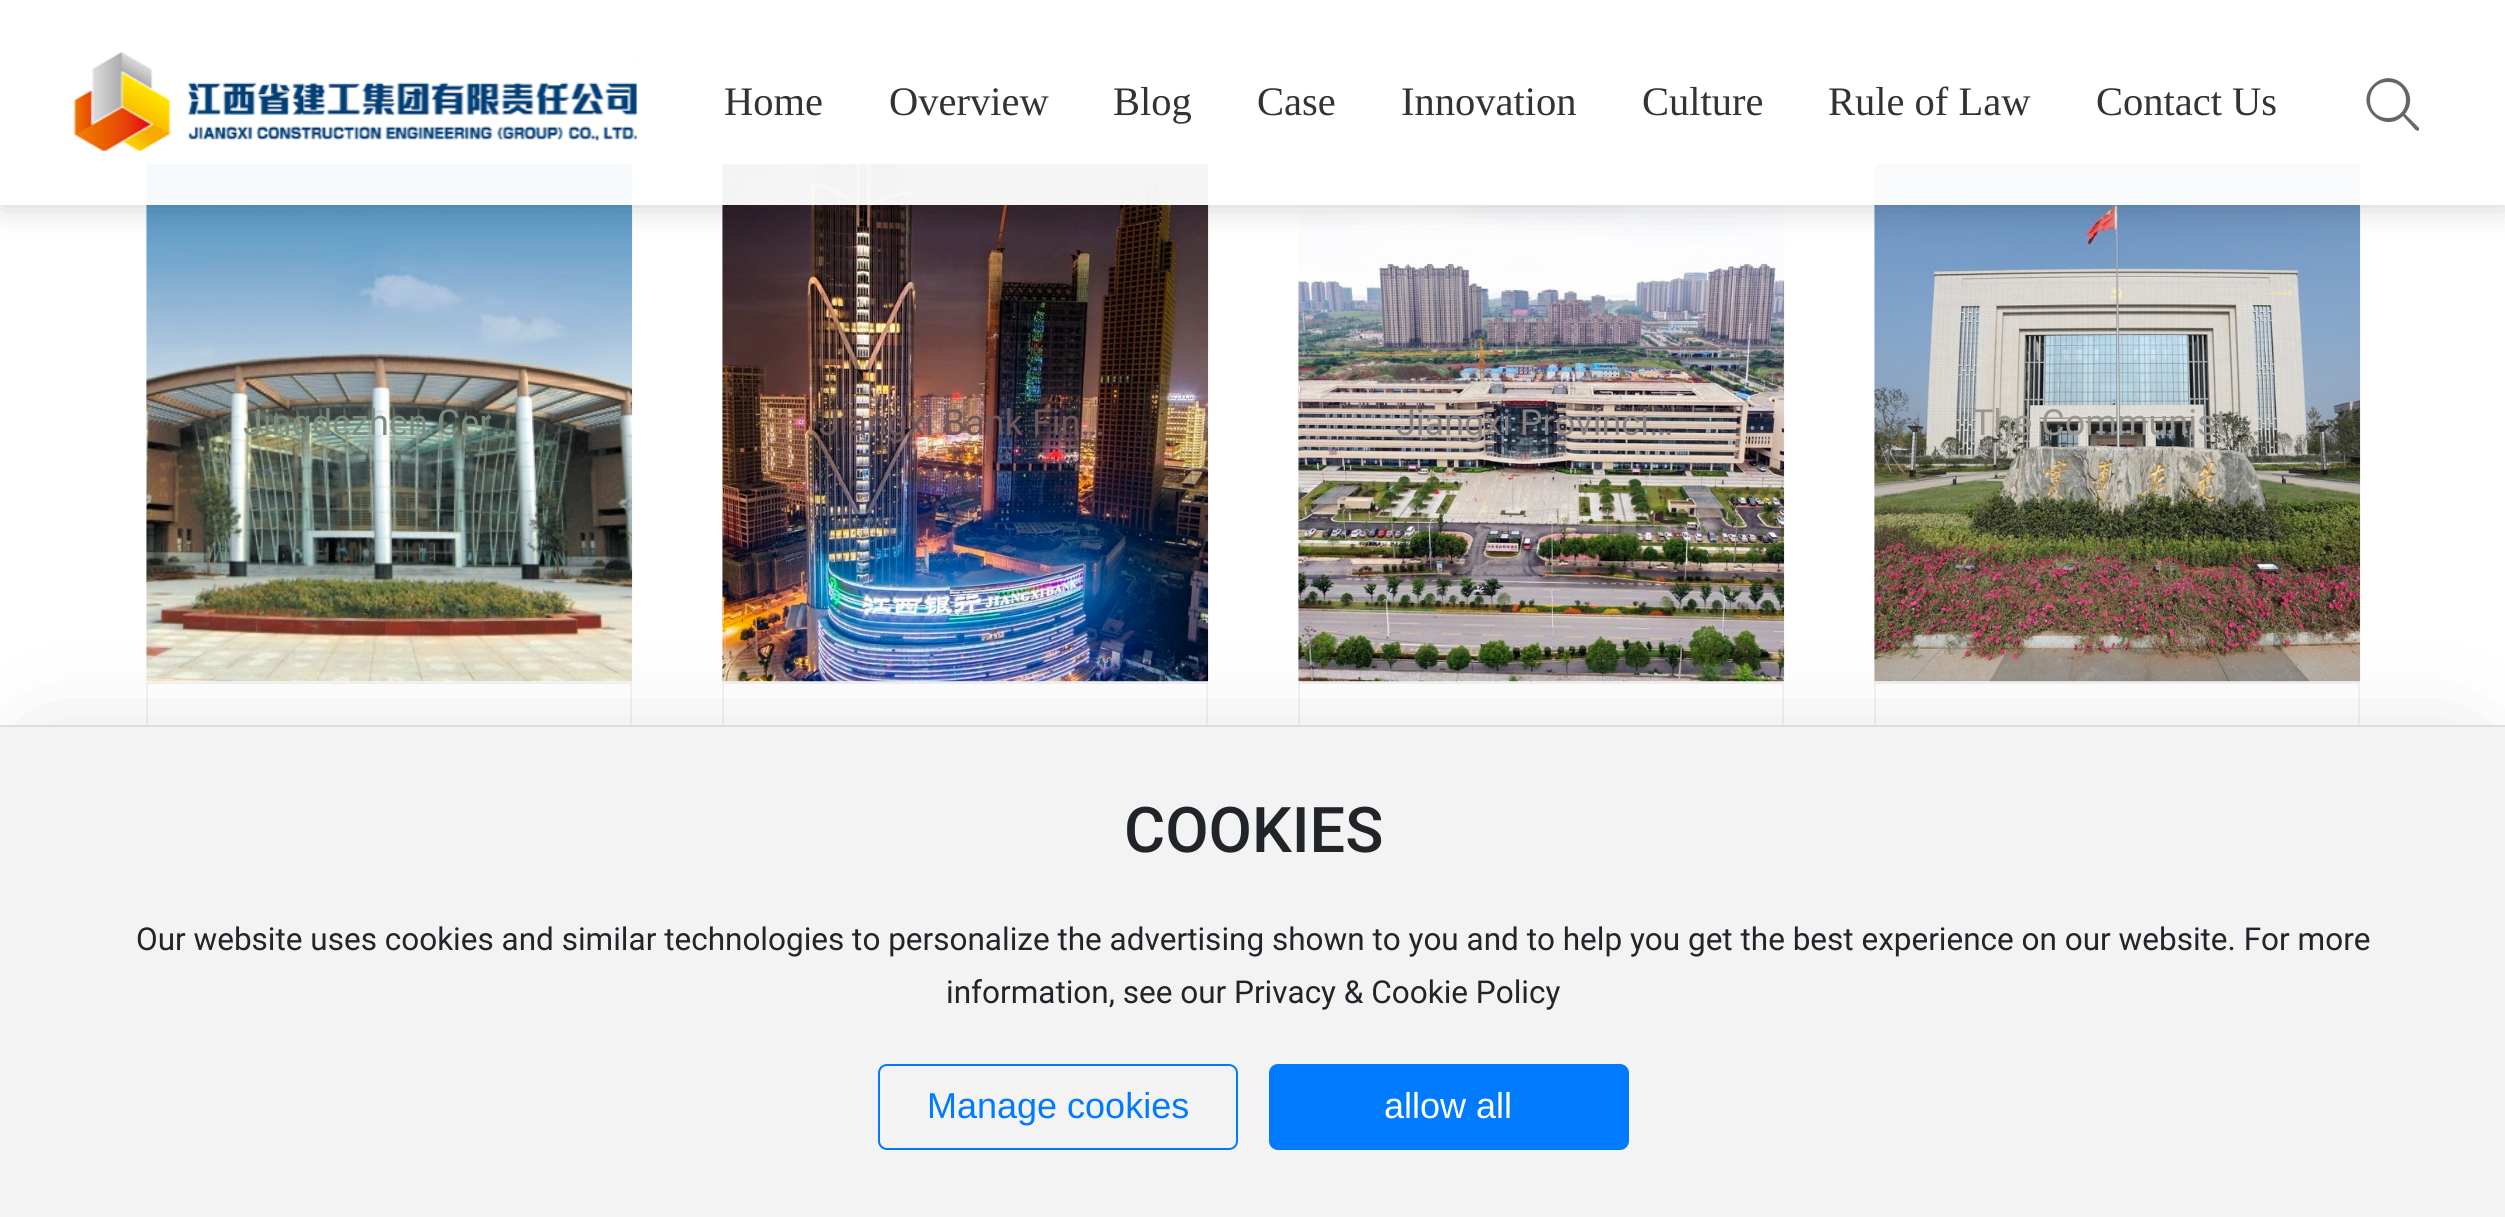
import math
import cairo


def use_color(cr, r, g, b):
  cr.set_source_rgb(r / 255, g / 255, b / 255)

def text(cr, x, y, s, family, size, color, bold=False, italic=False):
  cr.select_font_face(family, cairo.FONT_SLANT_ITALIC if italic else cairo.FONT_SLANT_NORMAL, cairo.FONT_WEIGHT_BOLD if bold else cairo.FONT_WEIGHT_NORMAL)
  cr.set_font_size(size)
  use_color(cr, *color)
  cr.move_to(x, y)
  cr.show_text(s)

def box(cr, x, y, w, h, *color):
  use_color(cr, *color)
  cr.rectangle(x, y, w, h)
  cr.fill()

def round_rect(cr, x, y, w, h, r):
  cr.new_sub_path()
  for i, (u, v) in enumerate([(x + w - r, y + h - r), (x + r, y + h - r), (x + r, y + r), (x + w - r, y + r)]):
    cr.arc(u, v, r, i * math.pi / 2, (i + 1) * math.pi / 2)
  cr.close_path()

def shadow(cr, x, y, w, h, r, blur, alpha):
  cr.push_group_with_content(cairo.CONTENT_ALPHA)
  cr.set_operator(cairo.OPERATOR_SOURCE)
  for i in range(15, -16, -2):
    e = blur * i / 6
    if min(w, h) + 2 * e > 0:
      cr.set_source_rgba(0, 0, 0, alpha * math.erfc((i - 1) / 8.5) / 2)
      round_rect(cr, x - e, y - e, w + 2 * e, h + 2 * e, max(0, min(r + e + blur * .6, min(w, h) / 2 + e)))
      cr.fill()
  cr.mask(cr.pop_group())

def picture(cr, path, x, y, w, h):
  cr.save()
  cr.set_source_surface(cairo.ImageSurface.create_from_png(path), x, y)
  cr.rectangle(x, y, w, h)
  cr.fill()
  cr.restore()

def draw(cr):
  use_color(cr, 255, 255, 255)
  cr.paint()
  box(cr, 0, 43, 2505, 2, 232, 234, 238)
  picture(cr, "img_02.png", 146, 164, 487, 518)
  picture(cr, "img_03.png", 722, 164, 487, 518)
  picture(cr, "img_04.png", 1298, 164, 487, 518)
  picture(cr, "img_05.png", 1874, 164, 487, 518)
  cr.save()
  cr.set_fill_rule(cairo.FILL_RULE_EVEN_ODD)
  cr.new_path()
  cr.move_to(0, 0)
  cr.line_to(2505, 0)
  cr.line_to(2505, 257)
  cr.line_to(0, 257)
  cr.close_path()
  cr.move_to(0, 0)
  cr.line_to(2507, 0)
  cr.line_to(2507, 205)
  cr.line_to(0, 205)
  cr.close_path()
  cr.clip()
  use_color(cr, 0, 0, 0)
  shadow(cr, 0, 0, 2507, 205, 0, 17, 0.2)
  cr.restore()
  cr.set_source_rgba(1, 1, 1, 0.95)
  cr.rectangle(0, 43, 2505, 162)
  cr.fill()
  picture(cr, "img_01.png", 74, 51, 563, 100)
  use_color(cr, 102, 102, 102)
  cr.new_path()
  cr.move_to(2419, 128)
  cr.line_to(2405, 114)
  cr.curve_to(2422, 93, 2393, 65, 2373, 85)
  cr.curve_to(2353, 105, 2383, 135, 2403, 116)
  cr.line_to(2412, 126)
  cr.curve_to(2412, 126, 2417, 133, 2419, 130)
  cr.curve_to(2419, 130, 2419, 129, 2419, 128)
  cr.close_path()
  cr.move_to(2388, 118)
  cr.curve_to(2364, 118, 2364, 82, 2388, 82)
  cr.curve_to(2412, 82, 2412, 118, 2388, 118)
  cr.close_path()
  cr.fill()
  cr.rectangle(147, 683, 484, 290)
  use_color(cr, 242, 242, 242)
  cr.stroke()
  cr.rectangle(723, 683, 484, 290)
  cr.stroke()
  cr.rectangle(1299, 683, 484, 290)
  cr.stroke()
  cr.rectangle(1875, 683, 484, 290)
  cr.stroke()
  use_color(cr, 0, 0, 0)
  shadow(cr, 47, 763, 2412, 398, 0, 56, 0.2)
  box(cr, 0, 727, 2505, 490, 243, 243, 243)
  box(cr, 0, 725, 2505, 2, 221, 221, 221)
  round_rect(cr, 879, 1065, 358, 84, 8)
  use_color(cr, 0, 123, 255)
  cr.stroke()
  round_rect(cr, 1270, 1065, 358, 84, 8)
  cr.fill_preserve()
  cr.stroke()
  text(cr, 724, 115, "Home", "Liberation Serif", 40.5, (51, 51, 51))
  text(cr, 889, 115, "Overview", "Liberation Serif", 40.5, (51, 51, 51))
  text(cr, 1113, 115, "Blog", "Liberation Serif", 40.5, (51, 51, 51))
  text(cr, 1257, 115, "Case", "Liberation Serif", 40.5, (51, 51, 51))
  text(cr, 1401, 115, "Innovation", "Liberation Serif", 40.5, (51, 51, 51))
  text(cr, 1642, 115, "Culture", "Liberation Serif", 40.5, (51, 51, 51))
  text(cr, 1828, 115, "Rule of Law", "Liberation Serif", 40.5, (51, 51, 51))
  text(cr, 2096, 115, "Contact Us", "Liberation Serif", 40.5, (51, 51, 51))
  text(cr, 243, 435, "Jingdezhen Cer…", "Roboto", 36, (123, 139, 127))
  text(cr, 819, 435, "Jiangxi Bank Fin…", "Roboto", 36, (112, 87, 89))
  text(cr, 1396, 435, "Jiangxi Provinci…", "Roboto", 36, (135, 130, 129))
  text(cr, 1972, 435, "The Communist …", "Roboto", 36, (151, 150, 145))
  text(cr, 1124, 852, "COOKIES", "Roboto Medium", 63, (33, 37, 41))
  text(cr, 136, 950, "Our website uses cookies and similar technologies to personalize the advertising shown to you and to help you get the best experience on our website. For more", "Roboto", 31.5, (33, 37, 41))
  text(cr, 946, 1003, "information, see our Privacy & Cookie Policy", "Roboto", 31.5, (33, 37, 41))
  text(cr, 927, 1118, "Manage cookies", "Liberation Sans", 36, (0, 123, 255))
  text(cr, 1384, 1118, "allow all", "Liberation Sans", 36, (255, 255, 255))


surface = cairo.ImageSurface(cairo.FORMAT_RGB24, 2505, 1217)
cr = cairo.Context(surface)
options = cairo.FontOptions()
options.set_hint_metrics(cairo.HINT_METRICS_OFF)
options.set_hint_style(cairo.HINT_STYLE_NONE)
cr.set_font_options(options)
cr.set_miter_limit(4)
draw(cr)
surface.write_to_png("out.png")
